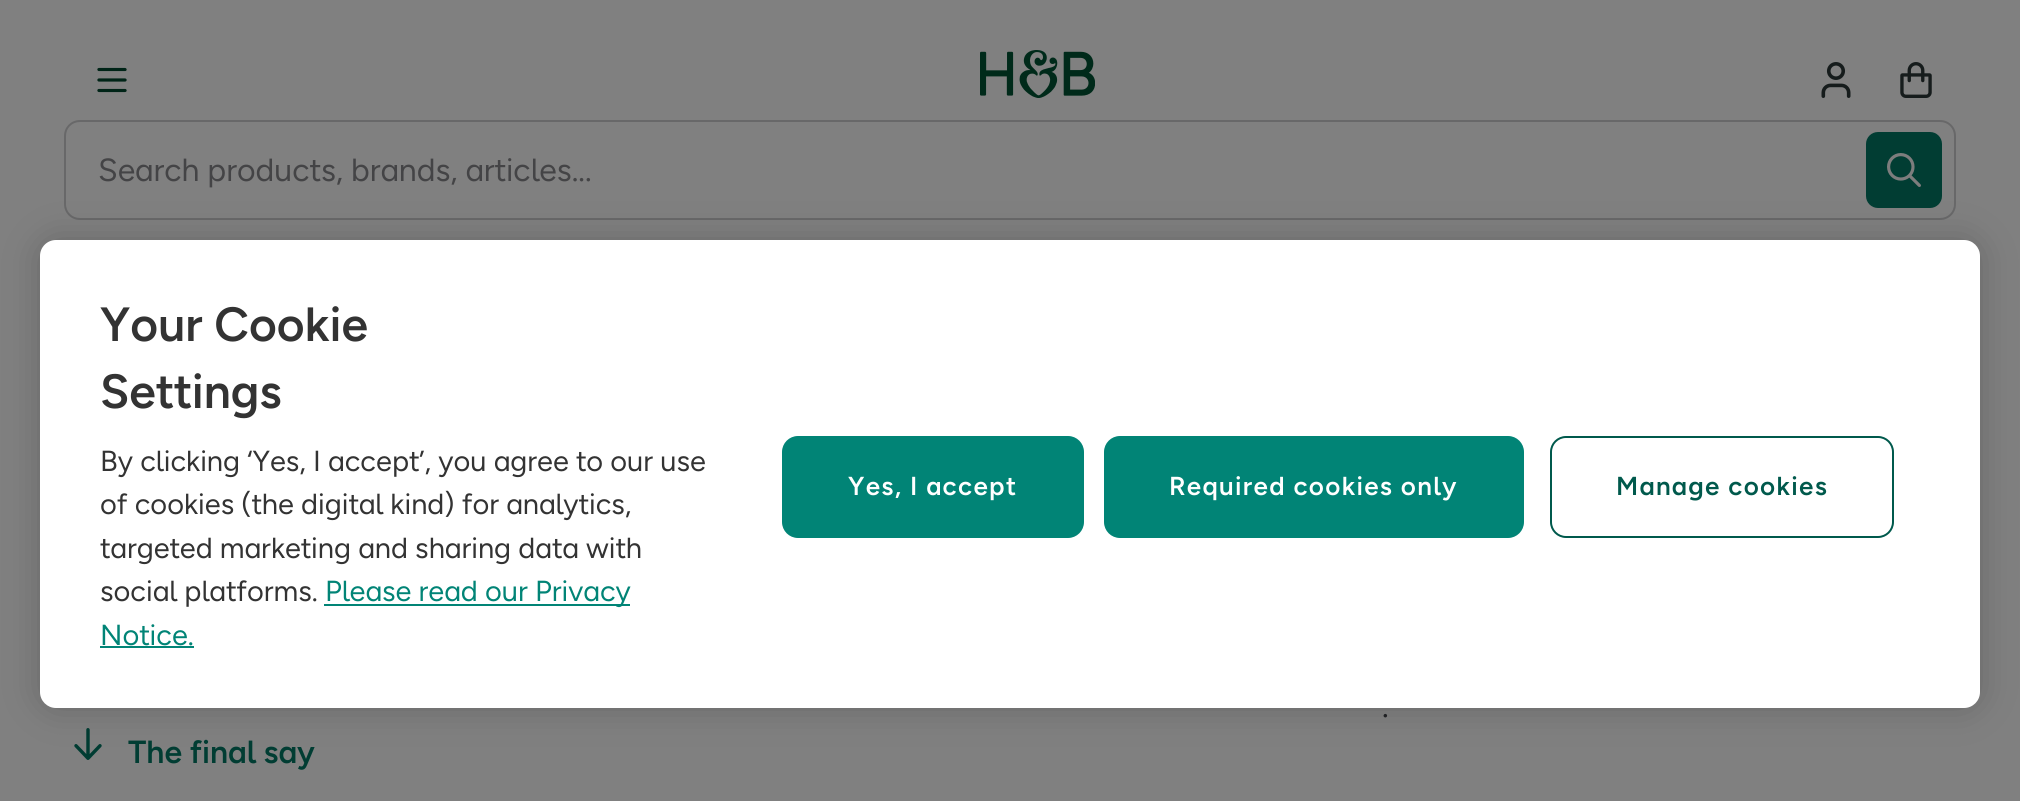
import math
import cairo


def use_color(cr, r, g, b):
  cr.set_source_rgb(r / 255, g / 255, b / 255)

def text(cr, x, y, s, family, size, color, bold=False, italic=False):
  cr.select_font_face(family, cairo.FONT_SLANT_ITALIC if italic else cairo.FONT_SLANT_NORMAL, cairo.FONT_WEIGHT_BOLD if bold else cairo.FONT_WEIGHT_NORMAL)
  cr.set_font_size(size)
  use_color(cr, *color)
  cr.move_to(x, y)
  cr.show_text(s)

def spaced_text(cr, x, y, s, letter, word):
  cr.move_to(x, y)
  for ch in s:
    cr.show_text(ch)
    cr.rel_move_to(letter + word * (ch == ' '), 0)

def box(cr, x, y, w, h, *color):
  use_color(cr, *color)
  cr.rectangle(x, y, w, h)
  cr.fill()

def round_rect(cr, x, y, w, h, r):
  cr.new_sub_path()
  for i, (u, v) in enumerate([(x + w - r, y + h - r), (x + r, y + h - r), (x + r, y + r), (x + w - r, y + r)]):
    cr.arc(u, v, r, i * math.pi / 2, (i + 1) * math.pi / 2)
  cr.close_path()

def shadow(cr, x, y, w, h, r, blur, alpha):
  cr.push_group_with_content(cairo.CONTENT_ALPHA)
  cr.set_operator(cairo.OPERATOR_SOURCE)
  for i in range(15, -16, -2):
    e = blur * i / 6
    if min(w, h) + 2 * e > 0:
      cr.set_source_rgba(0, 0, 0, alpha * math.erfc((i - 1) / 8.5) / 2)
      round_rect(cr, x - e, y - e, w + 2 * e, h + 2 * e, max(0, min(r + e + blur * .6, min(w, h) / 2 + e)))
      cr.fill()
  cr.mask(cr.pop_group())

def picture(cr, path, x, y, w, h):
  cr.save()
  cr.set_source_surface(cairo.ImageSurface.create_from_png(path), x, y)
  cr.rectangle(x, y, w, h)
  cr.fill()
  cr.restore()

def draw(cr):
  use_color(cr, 128, 128, 128)
  cr.paint()
  picture(cr, "img_01.png", 97, 67, 30, 26)
  picture(cr, "img_02.png", 980, 50, 115, 48)
  picture(cr, "img_03.png", 1821, 62, 30, 36)
  picture(cr, "img_04.png", 1900, 62, 32, 36)
  use_color(cr, 104, 104, 105)
  cr.set_fill_rule(cairo.FILL_RULE_EVEN_ODD)
  cr.new_path()
  cr.move_to(80, 120)
  cr.line_to(1866, 120)
  cr.line_to(1866, 220)
  cr.line_to(80, 220)
  cr.curve_to(71, 220, 64, 213, 64, 204)
  cr.line_to(64, 136)
  cr.curve_to(64, 127, 71, 120, 80, 120)
  cr.close_path()
  cr.move_to(80, 122)
  cr.line_to(1866, 122)
  cr.line_to(1866, 218)
  cr.line_to(80, 218)
  cr.curve_to(72, 218, 66, 212, 66, 204)
  cr.line_to(66, 136)
  cr.curve_to(66, 128, 72, 122, 80, 122)
  cr.close_path()
  cr.fill()
  cr.new_path()
  cr.move_to(1866, 120)
  cr.line_to(1940, 120)
  cr.curve_to(1949, 120, 1956, 127, 1956, 136)
  cr.line_to(1956, 204)
  cr.curve_to(1956, 213, 1949, 220, 1940, 220)
  cr.line_to(1866, 220)
  cr.close_path()
  cr.move_to(1866, 122)
  cr.line_to(1940, 122)
  cr.curve_to(1948, 122, 1954, 128, 1954, 136)
  cr.line_to(1954, 204)
  cr.curve_to(1954, 212, 1948, 218, 1940, 218)
  cr.line_to(1866, 218)
  cr.close_path()
  cr.fill()
  use_color(cr, 1, 61, 51)
  round_rect(cr, 1866, 132, 76, 76, 12)
  cr.fill()
  picture(cr, "img_05.png", 1887, 153, 34, 34)
  picture(cr, "img_06.png", 74, 728, 28, 32)
  use_color(cr, 0, 0, 0)
  shadow(cr, 40, 240, 1940, 468, 16, 18, 0.2)
  use_color(cr, 255, 255, 255)
  round_rect(cr, 40, 240, 1940, 468, 16)
  cr.fill()
  box(cr, 324, 604, 306, 2, 1, 132, 118)
  box(cr, 100, 646, 94, 2, 1, 132, 118)
  round_rect(cr, 783, 437, 300, 100, 15)
  cr.fill_preserve()
  cr.stroke()
  round_rect(cr, 1105, 437, 418, 100, 15)
  cr.fill_preserve()
  cr.stroke()
  round_rect(cr, 1551, 437, 342, 100, 15)
  use_color(cr, 0, 89, 76)
  cr.stroke()
  text(cr, 98, 181, "Search products, brands, articles...", "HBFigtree", 32, (68, 68, 70))
  text(cr, 1382, 717, ".", "HBFigtree", 32, (32, 33, 36))
  text(cr, 128, 763, "The final say", "HBFigtree SemiBold", 32, (1, 61, 51))
  text(cr, 100, 341, "Your Cookie", "HBFigtree SemiBold", 48, (51, 51, 51))
  text(cr, 100, 408, "Settings", "HBFigtree SemiBold", 48, (51, 51, 51))
  text(cr, 100, 471, "By clicking ‘Yes, I accept’, you agree to our use", "HBFigtree", 29, (51, 51, 51))
  text(cr, 100, 514, "of cookies (the digital kind) for analytics,", "HBFigtree", 29, (51, 51, 51))
  text(cr, 100, 558, "targeted marketing and sharing data with", "HBFigtree", 29, (51, 51, 51))
  text(cr, 100, 601, "social platforms.", "HBFigtree", 29, (51, 51, 51))
  text(cr, 325, 601, "Please read our Privacy", "HBFigtree", 29, (1, 132, 118))
  text(cr, 100, 645, "Notice.", "HBFigtree", 29, (1, 132, 118))
  cr.select_font_face("HBFigtree SemiBold")
  cr.set_font_size(26)
  use_color(cr, 255, 255, 255)
  spaced_text(cr, 848, 495, "Yes, I accept", 1.3, 0)
  spaced_text(cr, 1169, 495, "Required cookies only", 1.3, 0)
  use_color(cr, 0, 89, 76)
  spaced_text(cr, 1616, 495, "Manage cookies", 1.3, 0)


surface = cairo.ImageSurface(cairo.FORMAT_RGB24, 2020, 801)
cr = cairo.Context(surface)
options = cairo.FontOptions()
options.set_hint_metrics(cairo.HINT_METRICS_OFF)
options.set_hint_style(cairo.HINT_STYLE_NONE)
cr.set_font_options(options)
cr.set_miter_limit(4)
draw(cr)
surface.write_to_png("out.png")
